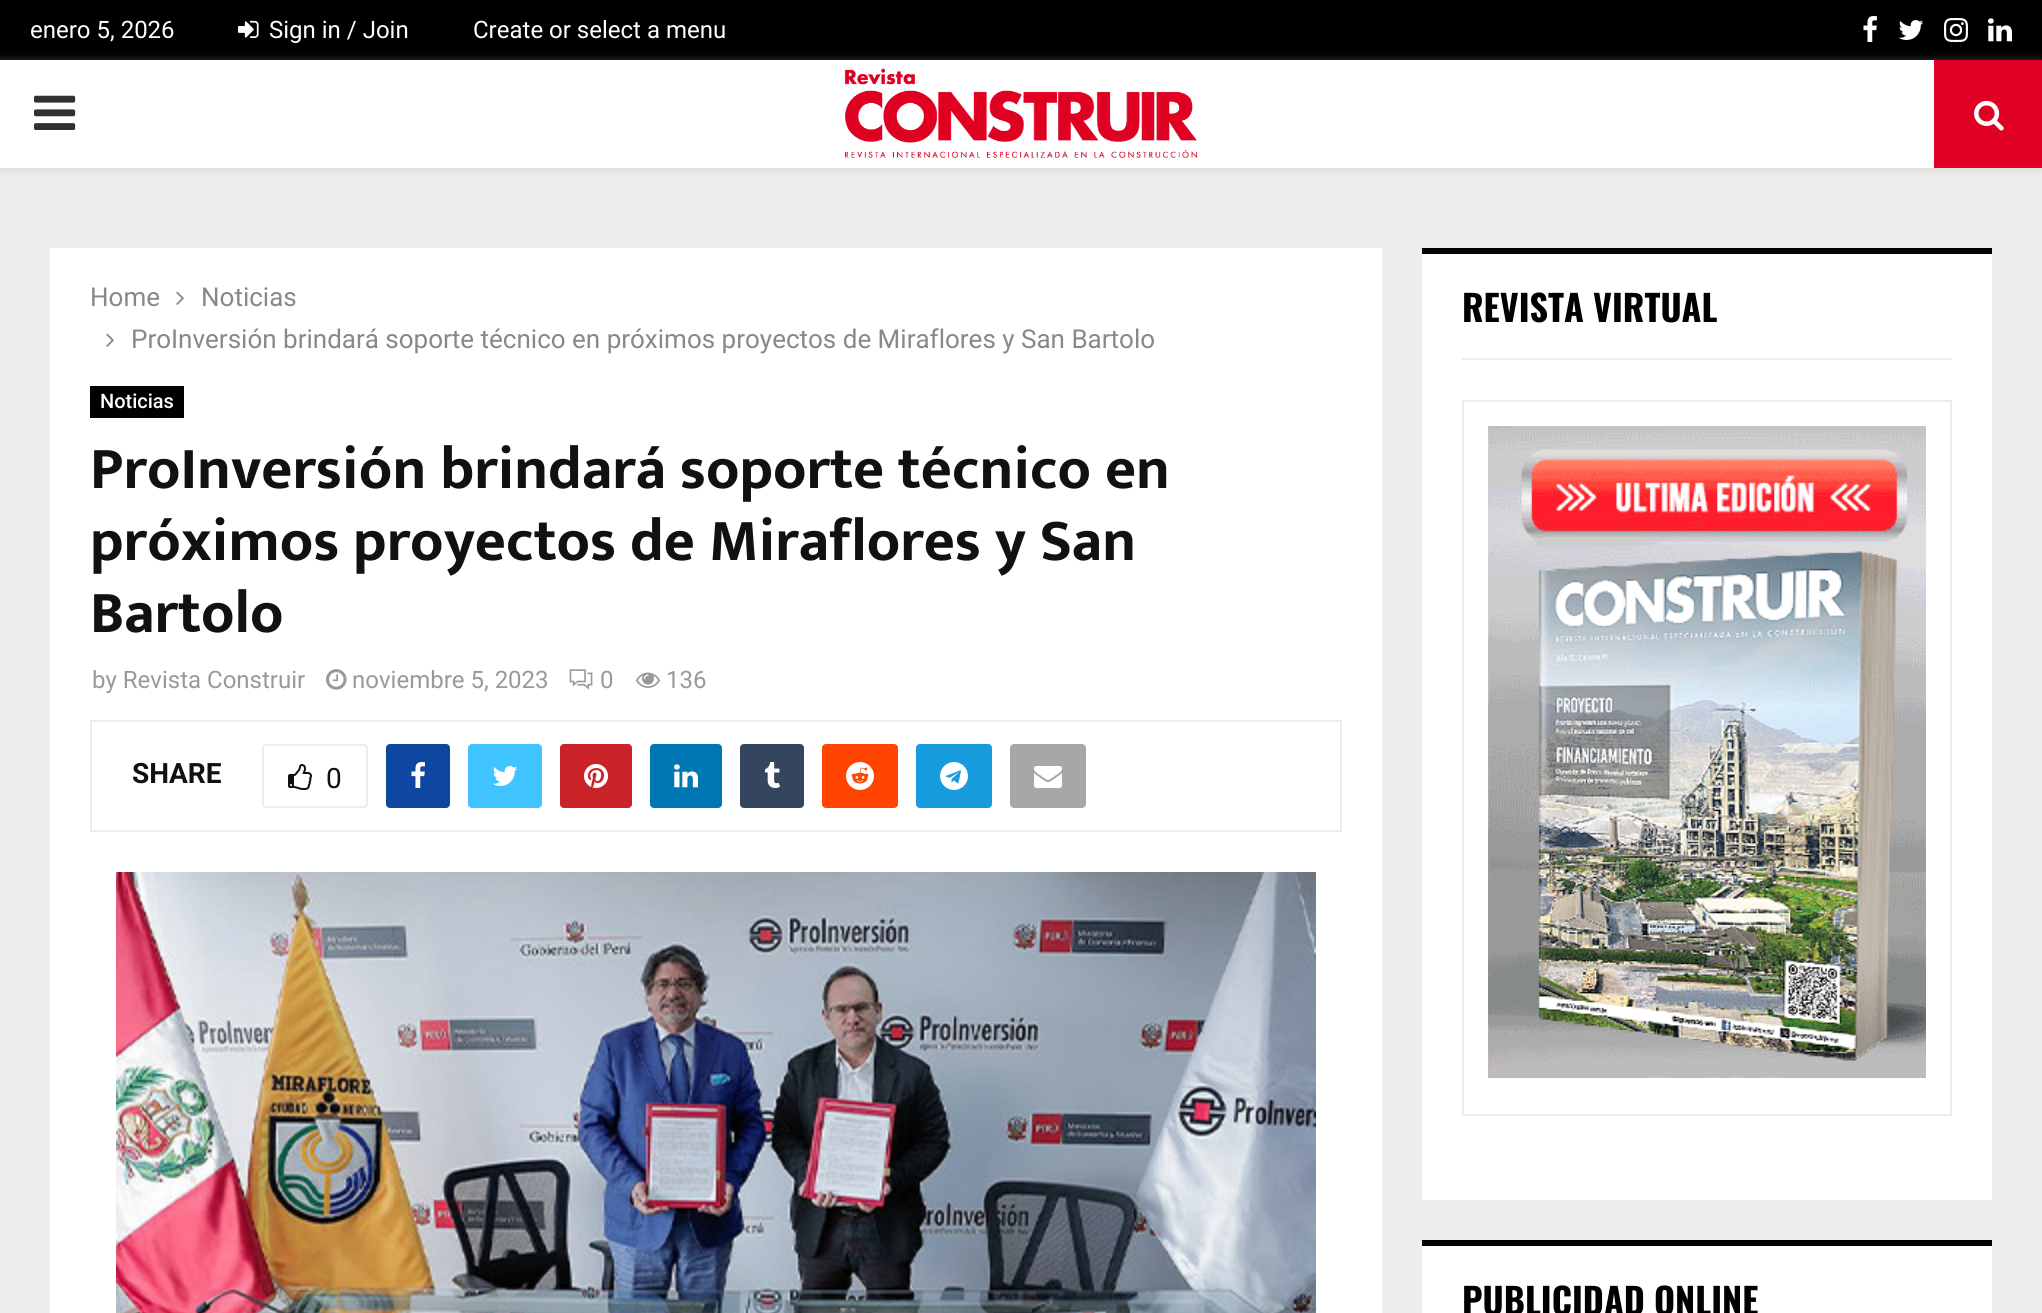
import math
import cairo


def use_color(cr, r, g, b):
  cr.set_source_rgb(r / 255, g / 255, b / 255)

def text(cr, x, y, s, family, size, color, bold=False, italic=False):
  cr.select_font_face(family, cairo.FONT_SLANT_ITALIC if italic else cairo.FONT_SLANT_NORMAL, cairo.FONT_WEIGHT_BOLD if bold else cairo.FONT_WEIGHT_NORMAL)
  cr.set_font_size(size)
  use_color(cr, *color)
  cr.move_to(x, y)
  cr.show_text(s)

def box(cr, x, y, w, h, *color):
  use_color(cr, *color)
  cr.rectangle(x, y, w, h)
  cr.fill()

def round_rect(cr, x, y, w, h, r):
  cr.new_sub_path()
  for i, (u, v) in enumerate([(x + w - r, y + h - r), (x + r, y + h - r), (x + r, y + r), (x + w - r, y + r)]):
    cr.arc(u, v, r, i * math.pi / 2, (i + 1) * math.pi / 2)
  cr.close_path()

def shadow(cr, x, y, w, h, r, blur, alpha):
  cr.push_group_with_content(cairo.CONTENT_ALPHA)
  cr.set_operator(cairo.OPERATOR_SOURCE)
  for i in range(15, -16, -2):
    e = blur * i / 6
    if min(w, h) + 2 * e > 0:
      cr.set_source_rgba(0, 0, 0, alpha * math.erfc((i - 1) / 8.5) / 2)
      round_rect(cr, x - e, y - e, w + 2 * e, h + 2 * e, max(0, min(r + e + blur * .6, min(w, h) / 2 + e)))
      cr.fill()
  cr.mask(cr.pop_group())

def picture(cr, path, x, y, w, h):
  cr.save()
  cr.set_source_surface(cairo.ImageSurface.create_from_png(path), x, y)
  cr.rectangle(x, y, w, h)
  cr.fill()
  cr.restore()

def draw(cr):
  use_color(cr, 238, 238, 238)
  cr.paint()
  box(cr, 0, 0, 2042, 60, 0, 0, 0)
  picture(cr, "img_01.png", 238, 20, 21, 18)
  picture(cr, "img_02.png", 1863, 16, 14, 26)
  picture(cr, "img_03.png", 1898, 20, 26, 20)
  picture(cr, "img_04.png", 1944, 18, 24, 24)
  picture(cr, "img_05.png", 1988, 18, 24, 24)
  use_color(cr, 190, 190, 190)
  shadow(cr, 0, 62, 2042, 108, 0, 5, 0.46)
  box(cr, 0, 60, 1934, 108, 255, 255, 255)
  picture(cr, "img_06.png", 34, 95, 42, 35)
  picture(cr, "img_07.png", 844, 68, 354, 90)
  box(cr, 1934, 60, 108, 108, 223, 0, 35)
  picture(cr, "img_08.png", 1974, 100, 30, 31)
  box(cr, 50, 248, 1332, 1065, 255, 255, 255)
  picture(cr, "img_09.png", 176, 291, 8, 14)
  picture(cr, "img_09.png", 106, 333, 8, 14)
  box(cr, 90, 386, 94, 32, 0, 0, 0)
  picture(cr, "img_10.png", 326, 669, 21, 21)
  picture(cr, "img_11.png", 569, 669, 24, 21)
  picture(cr, "img_12.png", 636, 672, 24, 16)
  cr.rectangle(91, 721, 1250, 110)
  use_color(cr, 236, 236, 236)
  cr.stroke()
  round_rect(cr, 263, 745, 104, 62, 3)
  cr.stroke()
  picture(cr, "img_13.png", 288, 764, 24, 26)
  use_color(cr, 13, 71, 161)
  round_rect(cr, 386, 744, 64, 64, 4)
  cr.fill()
  picture(cr, "img_14.png", 411, 762, 14, 26)
  use_color(cr, 64, 196, 255)
  round_rect(cr, 468, 744, 74, 64, 4)
  cr.fill()
  picture(cr, "img_15.png", 492, 766, 26, 20)
  use_color(cr, 201, 34, 40)
  round_rect(cr, 560, 744, 72, 64, 4)
  cr.fill()
  picture(cr, "img_16.png", 584, 764, 24, 24)
  use_color(cr, 0, 119, 181)
  round_rect(cr, 650, 744, 72, 64, 4)
  cr.fill()
  picture(cr, "img_17.png", 674, 764, 24, 24)
  use_color(cr, 52, 70, 93)
  round_rect(cr, 740, 744, 64, 64, 4)
  cr.fill()
  picture(cr, "img_18.png", 765, 762, 15, 26)
  use_color(cr, 255, 69, 0)
  round_rect(cr, 822, 744, 76, 64, 4)
  cr.fill()
  picture(cr, "img_19.png", 846, 762, 28, 28)
  use_color(cr, 23, 156, 222)
  round_rect(cr, 916, 744, 76, 64, 4)
  cr.fill()
  picture(cr, "img_20.png", 940, 762, 28, 28)
  use_color(cr, 167, 167, 167)
  round_rect(cr, 1010, 744, 76, 64, 4)
  cr.fill()
  picture(cr, "img_21.png", 1034, 766, 28, 22)
  picture(cr, "img_22.png", 116, 872, 1200, 441)
  box(cr, 1422, 254, 570, 946, 255, 255, 255)
  box(cr, 1462, 358, 490, 2, 236, 236, 236)
  box(cr, 1422, 248, 570, 6, 0, 0, 0)
  box(cr, 1462, 400, 490, 2, 236, 236, 236)
  box(cr, 1950, 400, 2, 716, 236, 236, 236)
  box(cr, 1462, 1114, 490, 2, 236, 236, 236)
  box(cr, 1462, 400, 2, 716, 236, 236, 236)
  picture(cr, "img_23.png", 1488, 426, 438, 652)
  box(cr, 1422, 1246, 570, 67, 255, 255, 255)
  box(cr, 1422, 1240, 570, 6, 0, 0, 0)
  text(cr, 30, 38, "enero 5, 2026", "Roboto", 24, (255, 255, 255))
  text(cr, 269, 38, "Sign in / Join", "Roboto", 24, (255, 255, 255))
  text(cr, 473, 38, "Create or select a menu", "Roboto", 24, (255, 255, 255))
  text(cr, 90, 306, "Home", "Roboto", 26, (136, 136, 136))
  text(cr, 201, 306, "Noticias", "Roboto", 26, (136, 136, 136))
  text(cr, 131, 348, "ProInversión brindará soporte técnico en próximos proyectos de Miraflores y San Bartolo", "Roboto", 26, (136, 136, 136))
  text(cr, 100, 408, "Noticias", "Roboto Medium", 20, (255, 255, 255))
  text(cr, 90, 488, "ProInversión brindará soporte técnico en", "Mukta Vaani", 60, (17, 17, 17), bold=True)
  text(cr, 90, 560, "próximos proyectos de Miraflores y San", "Mukta Vaani", 60, (17, 17, 17), bold=True)
  text(cr, 90, 632, "Bartolo", "Mukta Vaani", 60, (17, 17, 17), bold=True)
  text(cr, 92, 688, "by Revista Construir", "Roboto", 24, (153, 153, 153))
  text(cr, 352, 688, "noviembre 5, 2023", "Roboto", 24, (153, 153, 153))
  text(cr, 600, 688, "0", "Roboto", 24, (153, 153, 153))
  text(cr, 666, 688, "136", "Roboto", 24, (153, 153, 153))
  text(cr, 132, 783, "SHARE", "Roboto", 28, (17, 17, 17), bold=True)
  text(cr, 326, 788, "0", "Roboto", 28, (17, 17, 17))
  text(cr, 1462, 322, "REVISTA VIRTUAL", "Oswald", 36, (0, 0, 0), bold=True)
  text(cr, 1462, 1315, "PUBLICIDAD ONLINE", "Oswald", 36, (0, 0, 0), bold=True)


surface = cairo.ImageSurface(cairo.FORMAT_RGB24, 2042, 1313)
cr = cairo.Context(surface)
options = cairo.FontOptions()
options.set_hint_metrics(cairo.HINT_METRICS_OFF)
options.set_hint_style(cairo.HINT_STYLE_NONE)
cr.set_font_options(options)
cr.set_miter_limit(4)
draw(cr)
surface.write_to_png("out.png")
